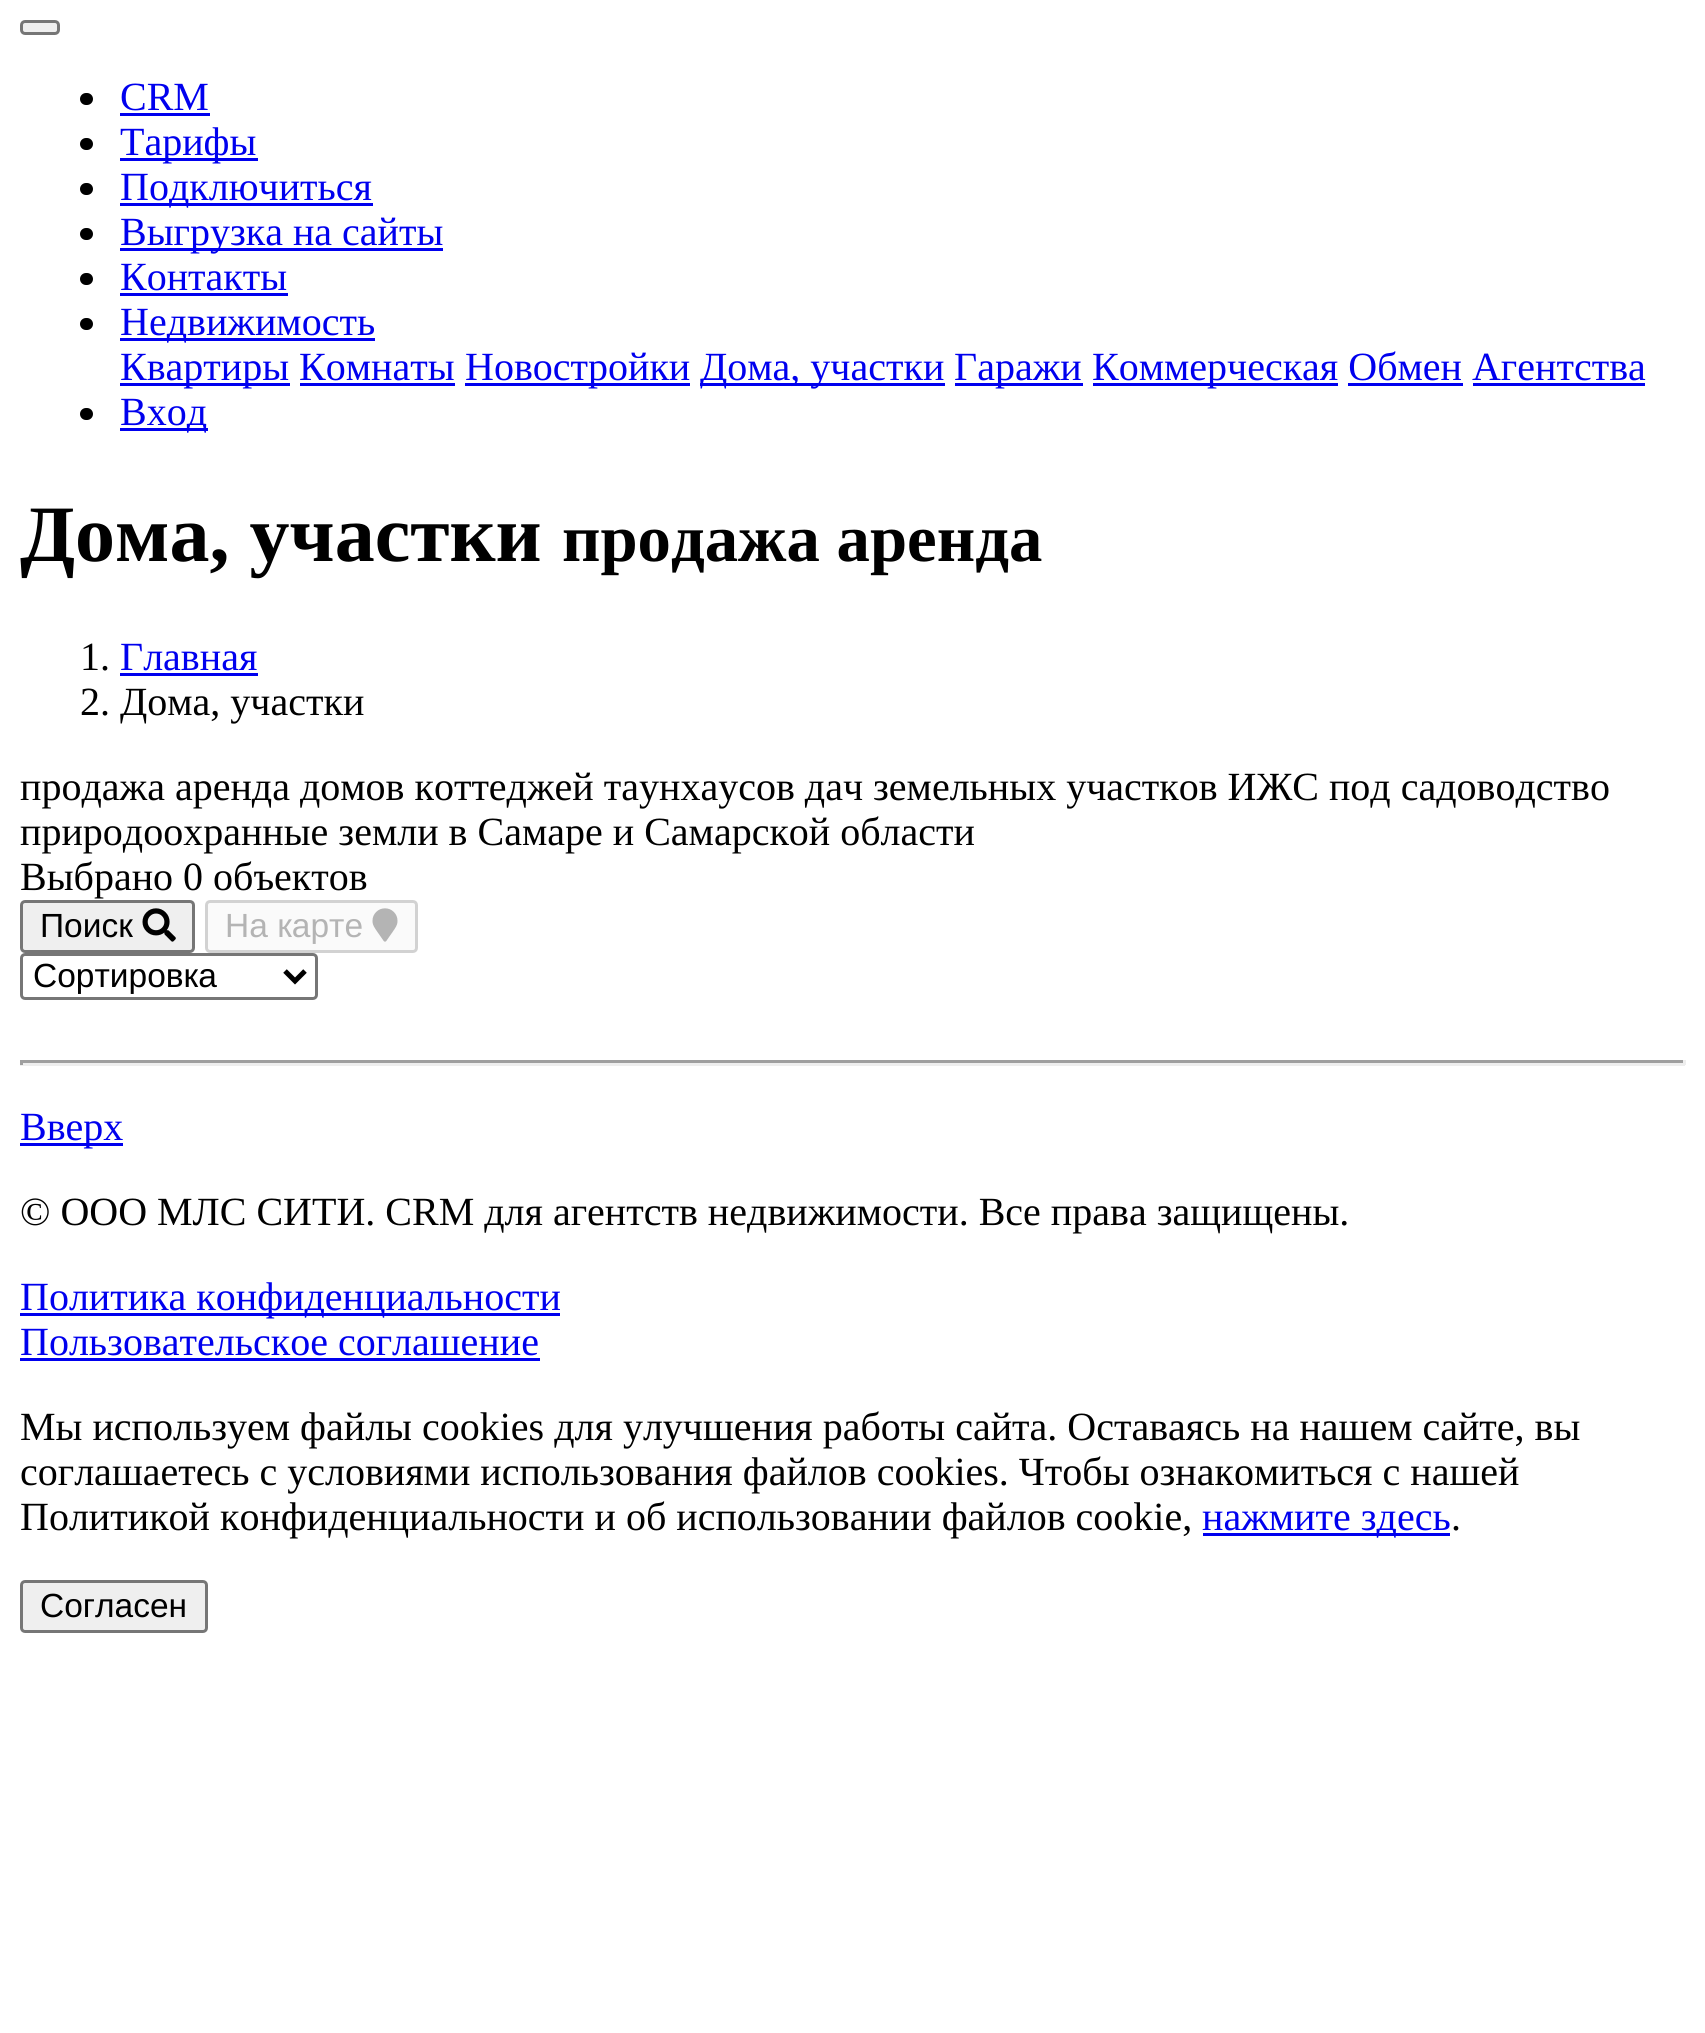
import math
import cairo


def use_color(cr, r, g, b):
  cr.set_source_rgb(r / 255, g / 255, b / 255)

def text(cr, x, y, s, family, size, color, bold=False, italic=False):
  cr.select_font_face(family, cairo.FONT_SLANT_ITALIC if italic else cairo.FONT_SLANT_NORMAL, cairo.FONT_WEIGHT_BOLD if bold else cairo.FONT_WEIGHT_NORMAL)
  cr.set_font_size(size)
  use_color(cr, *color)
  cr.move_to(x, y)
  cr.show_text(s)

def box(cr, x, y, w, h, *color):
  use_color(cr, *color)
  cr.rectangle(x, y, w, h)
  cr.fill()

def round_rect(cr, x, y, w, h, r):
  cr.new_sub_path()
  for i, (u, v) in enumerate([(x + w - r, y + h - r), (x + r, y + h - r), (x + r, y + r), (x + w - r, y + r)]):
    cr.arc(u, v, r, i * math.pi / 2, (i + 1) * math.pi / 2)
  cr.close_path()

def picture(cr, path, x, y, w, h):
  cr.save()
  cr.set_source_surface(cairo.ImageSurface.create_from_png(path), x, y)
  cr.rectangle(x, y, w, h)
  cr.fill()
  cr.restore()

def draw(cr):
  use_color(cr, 255, 255, 255)
  cr.paint()
  use_color(cr, 239, 239, 239)
  round_rect(cr, 21.5, 21.5, 37, 12, 3.5)
  cr.fill_preserve()
  use_color(cr, 118, 118, 118)
  cr.set_line_width(3)
  cr.stroke()
  use_color(cr, 0, 0, 0)
  round_rect(cr, 80, 93, 13, 12, 6)
  cr.fill()
  box(cr, 120, 113, 90, 3, 0, 0, 238)
  use_color(cr, 0, 0, 0)
  round_rect(cr, 80, 138, 13, 12, 6)
  cr.fill()
  box(cr, 120, 158, 138, 3, 0, 0, 238)
  use_color(cr, 0, 0, 0)
  round_rect(cr, 80, 183, 13, 12, 6)
  cr.fill()
  box(cr, 120, 203, 253, 3, 0, 0, 238)
  use_color(cr, 0, 0, 0)
  round_rect(cr, 80, 228, 13, 12, 6)
  cr.fill()
  box(cr, 120, 248, 323, 3, 0, 0, 238)
  use_color(cr, 0, 0, 0)
  round_rect(cr, 80, 273, 13, 12, 6)
  cr.fill()
  box(cr, 120, 293, 168, 3, 0, 0, 238)
  use_color(cr, 0, 0, 0)
  round_rect(cr, 80, 318, 13, 12, 6)
  cr.fill()
  box(cr, 120, 338, 255, 3, 0, 0, 238)
  box(cr, 120, 383, 170, 3, 0, 0, 238)
  box(cr, 465, 383, 225, 3, 0, 0, 238)
  box(cr, 700, 383, 245, 3, 0, 0, 238)
  box(cr, 955, 383, 128, 3, 0, 0, 238)
  box(cr, 1093, 383, 245, 3, 0, 0, 238)
  box(cr, 300, 383, 155, 3, 0, 0, 238)
  box(cr, 1348, 383, 115, 3, 0, 0, 238)
  box(cr, 1473, 383, 172, 3, 0, 0, 238)
  use_color(cr, 0, 0, 0)
  round_rect(cr, 80, 408, 13, 12, 6)
  cr.fill()
  box(cr, 120, 428, 88, 3, 0, 0, 238)
  box(cr, 120, 673, 138, 3, 0, 0, 238)
  use_color(cr, 239, 239, 239)
  round_rect(cr, 21.5, 901.5, 172, 50, 3.5)
  cr.fill_preserve()
  use_color(cr, 118, 118, 118)
  cr.stroke()
  picture(cr, "img_01.png", 142, 908, 34, 34)
  use_color(cr, 250, 250, 250)
  round_rect(cr, 206.5, 901.5, 210, 50, 3.5)
  cr.fill_preserve()
  use_color(cr, 210, 210, 210)
  cr.stroke()
  picture(cr, "img_02.png", 372, 908, 26, 34)
  round_rect(cr, 21.5, 954.5, 295, 44, 3.5)
  use_color(cr, 118, 118, 118)
  cr.stroke()
  cr.new_path()
  cr.move_to(285, 971)
  cr.line_to(295, 981)
  cr.line_to(305, 971)
  use_color(cr, 0, 0, 0)
  cr.set_line_width(5)
  cr.stroke()
  box(cr, 20, 1060, 1665, 3, 159, 159, 159)
  box(cr, 1683, 1060, 3, 5, 238, 238, 238)
  box(cr, 20, 1063, 1665, 3, 238, 238, 238)
  box(cr, 20, 1060, 3, 5, 159, 159, 159)
  box(cr, 20, 1143, 103, 3, 0, 0, 238)
  box(cr, 20, 1313, 540, 3, 0, 0, 238)
  box(cr, 20, 1358, 520, 3, 0, 0, 238)
  box(cr, 1203, 1533, 247, 3, 0, 0, 238)
  use_color(cr, 239, 239, 239)
  round_rect(cr, 21.5, 1581.5, 185, 50, 3.5)
  cr.fill_preserve()
  use_color(cr, 118, 118, 118)
  cr.set_line_width(3)
  cr.stroke()
  text(cr, 120, 110, "CRM", "Liberation Serif", 40, (0, 0, 238))
  text(cr, 120, 155, "Тарифы", "Liberation Serif", 40, (0, 0, 238))
  text(cr, 120, 200, "Подключиться", "Liberation Serif", 40, (0, 0, 238))
  text(cr, 120, 245, "Выгрузка на сайты", "Liberation Serif", 40, (0, 0, 238))
  text(cr, 120, 290, "Контакты", "Liberation Serif", 40, (0, 0, 238))
  text(cr, 120, 335, "Недвижимость", "Liberation Serif", 40, (0, 0, 238))
  text(cr, 120, 380, "Квартиры Комнаты", "Liberation Serif", 40, (0, 0, 238))
  text(cr, 465, 380, "Новостройки", "Liberation Serif", 40, (0, 0, 238))
  text(cr, 700, 380, "Дома, участки", "Liberation Serif", 40, (0, 0, 238))
  text(cr, 954, 380, "Гаражи", "Liberation Serif", 40, (0, 0, 238))
  text(cr, 1092, 380, "Коммерческая Обмен Агентства", "Liberation Serif", 40, (0, 0, 238))
  text(cr, 120, 425, "Вход", "Liberation Serif", 40, (0, 0, 238))
  text(cr, 20, 561, "Дома, участки", "Liberation Serif", 80, (0, 0, 0), bold=True)
  text(cr, 562, 561, "продажа аренда", "Liberation Serif", 66.75, (0, 0, 0), bold=True)
  text(cr, 80, 670, "1.", "Liberation Serif", 40, (0, 0, 0))
  text(cr, 120, 670, "Главная", "Liberation Serif", 40, (0, 0, 238))
  text(cr, 80, 715, "2. Дома, участки", "Liberation Serif", 40, (0, 0, 0))
  text(cr, 20, 800, "продажа аренда домов коттеджей таунхаусов дач земельных участков ИЖС под садоводство", "Liberation Serif", 40, (0, 0, 0))
  text(cr, 20, 845, "природоохранные земли в Самаре и Самарской области", "Liberation Serif", 40, (0, 0, 0))
  text(cr, 20, 890, "Выбрано 0 объектов", "Liberation Serif", 40, (0, 0, 0))
  text(cr, 40, 937, "Поиск", "Liberation Sans", 33.5, (0, 0, 0))
  text(cr, 225, 937, "На карте", "Liberation Sans", 33.5, (180, 180, 180))
  text(cr, 33, 987, "Сортировка", "Liberation Sans", 33.5, (0, 0, 0))
  text(cr, 20, 1140, "Вверх", "Liberation Serif", 40, (0, 0, 238))
  text(cr, 20, 1225, "© ООО МЛС СИТИ. CRM для агентств недвижимости. Все права защищены.", "Liberation Serif", 40, (0, 0, 0))
  text(cr, 20, 1310, "Политика конфиденциальности", "Liberation Serif", 40, (0, 0, 238))
  text(cr, 20, 1355, "Пользовательское соглашение", "Liberation Serif", 40, (0, 0, 238))
  text(cr, 20, 1440, "Мы используем файлы cookies для улучшения работы сайта. Оставаясь на нашем сайте, вы", "Liberation Serif", 40, (0, 0, 0))
  text(cr, 20, 1485, "соглашаетесь с условиями использования файлов cookies. Чтобы ознакомиться с нашей", "Liberation Serif", 40, (0, 0, 0))
  text(cr, 20, 1530, "Политикой конфиденциальности и об использовании файлов cookie,", "Liberation Serif", 40, (0, 0, 0))
  text(cr, 1202, 1530, "нажмите здесь", "Liberation Serif", 40, (0, 0, 238))
  text(cr, 1451, 1530, ".", "Liberation Serif", 40, (0, 0, 0))
  text(cr, 40, 1617, "Согласен", "Liberation Sans", 33.5, (0, 0, 0))


surface = cairo.ImageSurface(cairo.FORMAT_RGB24, 1705, 2033)
cr = cairo.Context(surface)
options = cairo.FontOptions()
options.set_hint_metrics(cairo.HINT_METRICS_OFF)
options.set_hint_style(cairo.HINT_STYLE_NONE)
cr.set_font_options(options)
cr.set_miter_limit(4)
draw(cr)
surface.write_to_png("out.png")
